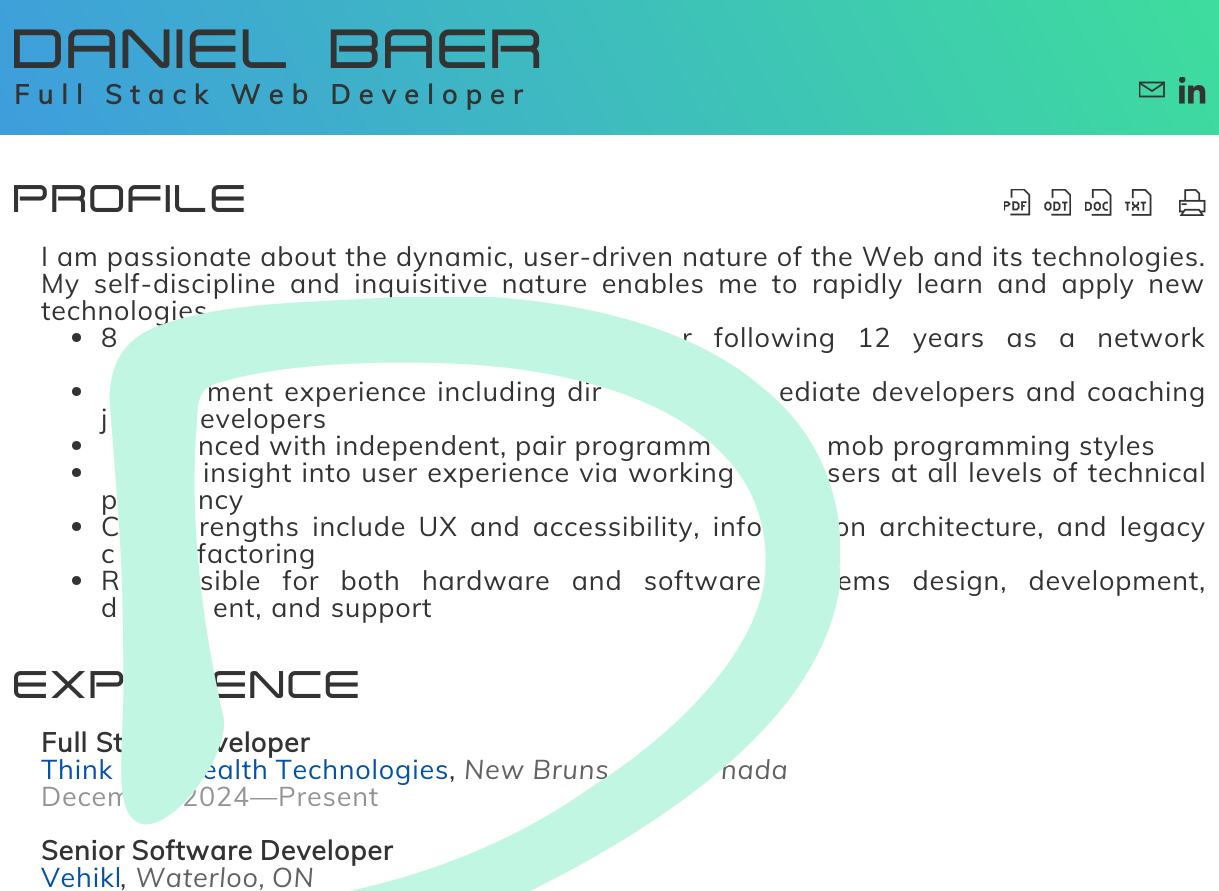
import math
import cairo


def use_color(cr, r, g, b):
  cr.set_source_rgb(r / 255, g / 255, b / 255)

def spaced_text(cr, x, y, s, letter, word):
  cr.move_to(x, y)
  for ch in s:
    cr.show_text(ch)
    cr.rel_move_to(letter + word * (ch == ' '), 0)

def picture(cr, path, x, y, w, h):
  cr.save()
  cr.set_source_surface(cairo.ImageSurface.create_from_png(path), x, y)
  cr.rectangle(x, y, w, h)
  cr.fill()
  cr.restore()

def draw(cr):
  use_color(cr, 255, 255, 255)
  cr.paint()
  gradient = cairo.LinearGradient(106, 335, 1113, -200)
  gradient.add_color_stop_rgba(0, 0.243, 0.616, 0.867, 1)
  gradient.add_color_stop_rgba(1, 0.243, 0.867, 0.616, 1)
  cr.set_source(gradient)
  cr.rectangle(0, 0, 1219, 135)
  cr.fill()
  cr.save()
  cr.rectangle(1139, 77, 27, 27)
  cr.clip()
  cr.new_path()
  cr.move_to(1139.5, 82.5)
  cr.line_to(1164, 82.5)
  cr.move_to(1164, 96.5)
  cr.line_to(1139.5, 96.5)
  cr.line_to(1139.5, 83)
  cr.line_to(1152, 91)
  cr.line_to(1164, 83)
  cr.close_path()
  use_color(cr, 51, 51, 51)
  cr.set_line_width(1.8)
  cr.set_line_cap(cairo.LINE_CAP_SQUARE)
  cr.stroke()
  cr.restore()
  picture(cr, "img_01.png", 1179, 77, 27, 27)
  use_color(cr, 51, 51, 51)
  cr.arc(76.5, 337.5, 4.5, 0, 2 * math.pi)
  cr.fill()
  cr.arc(76.5, 391.5, 4.5, 0, 2 * math.pi)
  cr.fill()
  cr.arc(76.5, 445.5, 4.5, 0, 2 * math.pi)
  cr.fill()
  cr.arc(76.5, 472.5, 4.5, 0, 2 * math.pi)
  cr.fill()
  cr.arc(76.5, 526.5, 4.5, 0, 2 * math.pi)
  cr.fill()
  cr.arc(76.5, 580.5, 4.5, 0, 2 * math.pi)
  cr.fill()
  picture(cr, "img_02.png", 1004, 189, 27, 27)
  picture(cr, "img_03.png", 1044, 189, 27, 27)
  picture(cr, "img_04.png", 1085, 189, 27, 27)
  picture(cr, "img_05.png", 1125, 189, 27, 27)
  picture(cr, "img_06.png", 1179, 189, 27, 27)
  cr.select_font_face("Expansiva", cairo.FONT_SLANT_NORMAL, cairo.FONT_WEIGHT_BOLD)
  cr.set_font_size(54)
  spaced_text(cr, 14, 68, "DANIEL BAER", 0.8, 11)
  cr.select_font_face("Muli", cairo.FONT_SLANT_NORMAL, cairo.FONT_WEIGHT_BOLD)
  cr.set_font_size(27)
  spaced_text(cr, 14, 104, "Full Stack Web Developer", 8.25, -1)
  cr.select_font_face("Expansiva", cairo.FONT_SLANT_NORMAL, cairo.FONT_WEIGHT_BOLD)
  cr.set_font_size(37.75)
  spaced_text(cr, 14, 212, "PROFILE", 0.8, 0)
  cr.select_font_face("Muli")
  cr.set_font_size(27)
  spaced_text(cr, 41, 266, "I am passionate about the dynamic, user-driven nature of the Web and its technologies.", 0.8, 0.4)
  spaced_text(cr, 41, 293, "My self-discipline", 0.8, 6)
  spaced_text(cr, 290, 293, "and inquisitive nature enables me to rapidly learn and apply new", 0.8, 5.75)
  spaced_text(cr, 41, 320, "technologies", 0.8, 0)
  spaced_text(cr, 101, 347, "8", 0.8, 13.5)
  spaced_text(cr, 682, 347, "r following 12 years as a network", 0.8, 13.5)
  spaced_text(cr, 207, 401, "ment experience including dir", 0.8, 2.5)
  spaced_text(cr, 779, 401, "ediate developers and coaching", 0.8, 2.5)
  spaced_text(cr, 101, 428, "j", 0.8, 0)
  spaced_text(cr, 200, 428, "evelopers", 0.8, 0)
  spaced_text(cr, 198, 455, "nced with independent, pair programm", 0.8, 0)
  spaced_text(cr, 827, 455, "mob programming styles", 0.8, 0)
  spaced_text(cr, 203, 482, "insight into user experience via working", 0.8, 1.5)
  spaced_text(cr, 827, 482, "sers at all levels of technical", 0.8, 1.5)
  spaced_text(cr, 101, 509, "p", 0.8, 0)
  spaced_text(cr, 198, 509, "ncy", 0.8, 0)
  spaced_text(cr, 101, 536, "C", 0.8, 4.5)
  spaced_text(cr, 199, 536, "rengths include UX and accessibility, info", 0.8, 4.5)
  spaced_text(cr, 834, 536, "on architecture, and legacy", 0.8, 4.5)
  spaced_text(cr, 101, 563, "c", 0.8, 0)
  spaced_text(cr, 197, 563, "factoring", 0.8, 0)
  spaced_text(cr, 101, 590, "R", 0.8, 13.5)
  spaced_text(cr, 200, 590, "sible for both hardware and software", 0.8, 13.5)
  spaced_text(cr, 837, 590, "ems design, development,", 0.8, 13.5)
  spaced_text(cr, 101, 617, "d", 0.8, 1)
  spaced_text(cr, 213, 617, "ent, and support", 0.8, 1)
  cr.select_font_face("Expansiva", cairo.FONT_SLANT_NORMAL, cairo.FONT_WEIGHT_BOLD)
  cr.set_font_size(37.75)
  spaced_text(cr, 14, 698, "EXP", 0.8, 0)
  spaced_text(cr, 213, 698, "ENCE", 0.8, 0)
  cr.select_font_face("Muli", cairo.FONT_SLANT_NORMAL, cairo.FONT_WEIGHT_BOLD)
  cr.set_font_size(27)
  spaced_text(cr, 41, 752, "Full St", 0.8, 0)
  spaced_text(cr, 213, 752, "veloper", 0.8, 0)
  cr.select_font_face("Muli")
  use_color(cr, 0, 82, 170)
  spaced_text(cr, 41, 779, "Think", 0.8, -1)
  spaced_text(cr, 202, 779, "ealth Technologies", 0.8, -1)
  use_color(cr, 51, 51, 51)
  spaced_text(cr, 449, 779, ",", 0.8, 0)
  cr.select_font_face("Muli", cairo.FONT_SLANT_ITALIC)
  use_color(cr, 98, 98, 98)
  spaced_text(cr, 464, 779, "New Bruns", 0.8, 0)
  spaced_text(cr, 721, 779, "nada", 0.8, 0)
  cr.select_font_face("Muli")
  use_color(cr, 148, 148, 148)
  spaced_text(cr, 41, 806, "Decem", 0.8, -1)
  spaced_text(cr, 182, 806, "2024—Present", 0.8, -1)
  cr.select_font_face("Muli", cairo.FONT_SLANT_NORMAL, cairo.FONT_WEIGHT_BOLD)
  use_color(cr, 51, 51, 51)
  spaced_text(cr, 41, 860, "Senior Software Developer", 0.8, -1)
  cr.select_font_face("Muli")
  use_color(cr, 0, 82, 170)
  spaced_text(cr, 41, 887, "Vehikl", 0.8, 0)
  use_color(cr, 51, 51, 51)
  spaced_text(cr, 120, 887, ",", 0.8, 0)
  cr.select_font_face("Muli", cairo.FONT_SLANT_ITALIC)
  use_color(cr, 98, 98, 98)
  spaced_text(cr, 135, 887, "Waterloo, ON", 0.8, -2)
  picture(cr, "img_07.png", 109, 297, 731, 594)


surface = cairo.ImageSurface(cairo.FORMAT_RGB24, 1219, 891)
cr = cairo.Context(surface)
options = cairo.FontOptions()
options.set_hint_metrics(cairo.HINT_METRICS_OFF)
options.set_hint_style(cairo.HINT_STYLE_NONE)
cr.set_font_options(options)
cr.set_miter_limit(4)
draw(cr)
surface.write_to_png("out.png")
